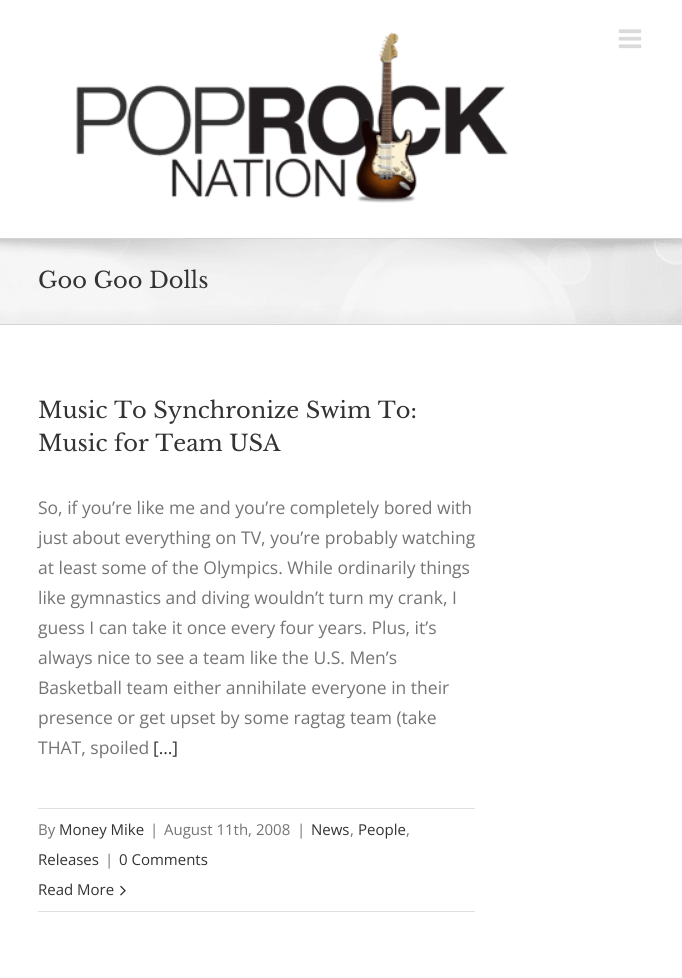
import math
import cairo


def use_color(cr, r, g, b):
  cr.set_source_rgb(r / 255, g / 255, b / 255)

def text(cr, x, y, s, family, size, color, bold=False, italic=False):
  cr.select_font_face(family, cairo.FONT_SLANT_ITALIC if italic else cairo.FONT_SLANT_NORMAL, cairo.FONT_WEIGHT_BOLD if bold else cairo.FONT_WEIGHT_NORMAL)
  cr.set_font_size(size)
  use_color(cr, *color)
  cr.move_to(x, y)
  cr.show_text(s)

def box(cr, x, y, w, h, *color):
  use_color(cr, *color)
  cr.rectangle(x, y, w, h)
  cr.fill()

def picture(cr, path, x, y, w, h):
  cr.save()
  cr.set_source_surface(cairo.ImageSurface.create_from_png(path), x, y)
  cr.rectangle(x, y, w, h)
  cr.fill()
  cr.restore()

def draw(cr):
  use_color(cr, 255, 255, 255)
  cr.paint()
  picture(cr, "img_01.png", 76, 32, 432, 171)
  picture(cr, "img_02.png", 618, 29, 24, 20)
  box(cr, 0, 239, 682, 85, 246, 246, 246)
  picture(cr, "img_03.png", 0, 239, 682, 85)
  box(cr, 0, 238, 682, 1, 210, 211, 212)
  box(cr, 0, 324, 682, 1, 210, 211, 212)
  box(cr, 38, 808, 437, 1, 224, 222, 222)
  box(cr, 38, 911, 437, 1, 224, 222, 222)
  picture(cr, "img_04.png", 120, 885, 6, 11)
  text(cr, 38, 288, "Goo Goo Dolls", "Libre Baskerville", 22.5, (51, 51, 51))
  text(cr, 38, 418, "Music To Synchronize Swim To:", "Libre Baskerville", 22.5, (51, 51, 51))
  text(cr, 38, 451, "Music for Team USA", "Libre Baskerville", 22.5, (51, 51, 51))
  text(cr, 38, 514, "So, if you’re like me and you’re completely bored with", "Open Sans", 17.5, (116, 116, 116))
  text(cr, 38, 544, "just about everything on TV, you’re probably watching", "Open Sans", 17.5, (116, 116, 116))
  text(cr, 38, 574, "at least some of the Olympics. While ordinarily things", "Open Sans", 17.5, (116, 116, 116))
  text(cr, 38, 604, "like gymnastics and diving wouldn’t turn my crank, I", "Open Sans", 17.5, (116, 116, 116))
  text(cr, 38, 634, "guess I can take it once every four years. Plus, it’s", "Open Sans", 17.5, (116, 116, 116))
  text(cr, 38, 664, "always nice to see a team like the U.S. Men’s", "Open Sans", 17.5, (116, 116, 116))
  text(cr, 38, 694, "Basketball team either annihilate everyone in their", "Open Sans", 17.5, (116, 116, 116))
  text(cr, 38, 724, "presence or get upset by some ragtag team (take", "Open Sans", 17.5, (116, 116, 116))
  text(cr, 38, 754, "THAT, spoiled", "Open Sans", 17.5, (116, 116, 116))
  text(cr, 153, 754, "[…]", "Open Sans", 17.5, (51, 51, 51))
  text(cr, 38, 835, "By", "Open Sans", 15, (116, 116, 116))
  text(cr, 59, 835, "Money Mike", "Open Sans", 15, (51, 51, 51))
  text(cr, 150, 835, "|", "Open Sans", 15, (116, 116, 116))
  text(cr, 164, 835, "August 11th, 2008", "Open Sans", 15, (116, 116, 116))
  text(cr, 297, 835, "|", "Open Sans", 15, (116, 116, 116))
  text(cr, 311, 835, "News", "Open Sans", 15, (51, 51, 51))
  text(cr, 350, 835, ",", "Open Sans", 15, (116, 116, 116))
  text(cr, 358, 835, "People", "Open Sans", 15, (51, 51, 51))
  text(cr, 406, 835, ",", "Open Sans", 15, (116, 116, 116))
  text(cr, 38, 865, "Releases", "Open Sans", 15, (51, 51, 51))
  text(cr, 105, 865, "|", "Open Sans", 15, (116, 116, 116))
  text(cr, 119, 865, "0 Comments", "Open Sans", 15, (51, 51, 51))
  text(cr, 38, 895, "Read More", "Open Sans", 15, (51, 51, 51))


surface = cairo.ImageSurface(cairo.FORMAT_RGB24, 682, 978)
cr = cairo.Context(surface)
options = cairo.FontOptions()
options.set_hint_metrics(cairo.HINT_METRICS_OFF)
options.set_hint_style(cairo.HINT_STYLE_NONE)
cr.set_font_options(options)
cr.set_miter_limit(4)
draw(cr)
surface.write_to_png("out.png")
